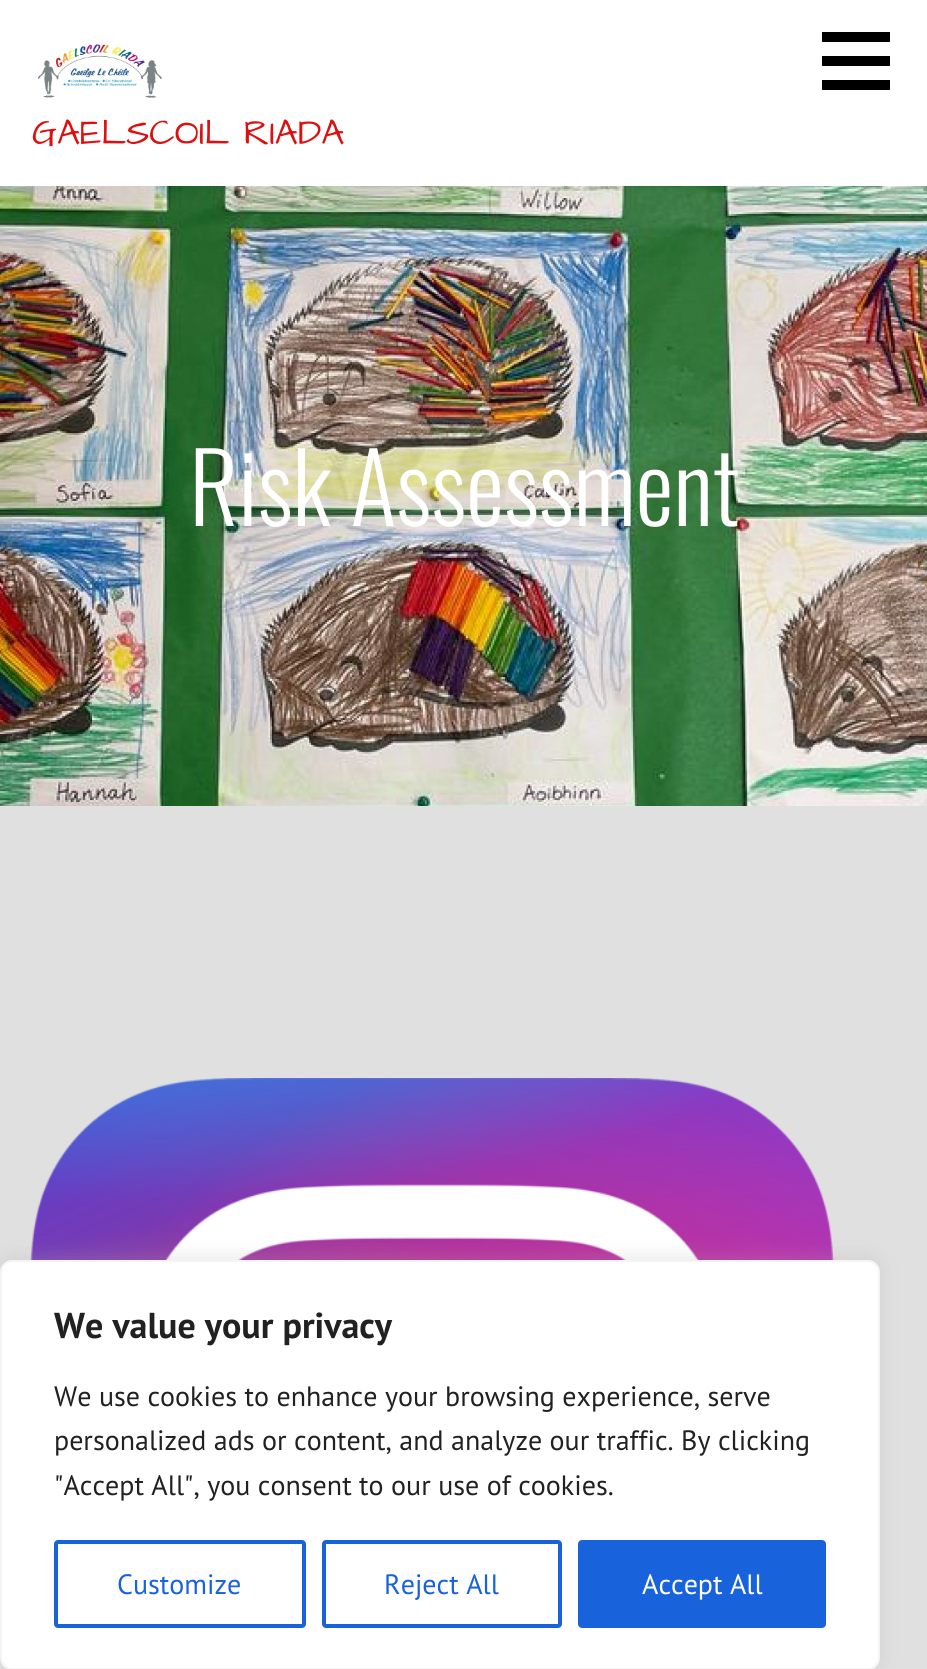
import math
import cairo


def use_color(cr, r, g, b):
  cr.set_source_rgb(r / 255, g / 255, b / 255)

def text(cr, x, y, s, family, size, color, bold=False, italic=False):
  cr.select_font_face(family, cairo.FONT_SLANT_ITALIC if italic else cairo.FONT_SLANT_NORMAL, cairo.FONT_WEIGHT_BOLD if bold else cairo.FONT_WEIGHT_NORMAL)
  cr.set_font_size(size)
  use_color(cr, *color)
  cr.move_to(x, y)
  cr.show_text(s)

def box(cr, x, y, w, h, *color):
  use_color(cr, *color)
  cr.rectangle(x, y, w, h)
  cr.fill()

def round_rect(cr, x, y, w, h, r):
  cr.new_sub_path()
  for i, (u, v) in enumerate([(x + w - r, y + h - r), (x + r, y + h - r), (x + r, y + r), (x + w - r, y + r)]):
    cr.arc(u, v, r, i * math.pi / 2, (i + 1) * math.pi / 2)
  cr.close_path()

def shadow(cr, x, y, w, h, r, blur, alpha):
  cr.push_group_with_content(cairo.CONTENT_ALPHA)
  cr.set_operator(cairo.OPERATOR_SOURCE)
  for i in range(15, -16, -2):
    e = blur * i / 6
    if min(w, h) + 2 * e > 0:
      cr.set_source_rgba(0, 0, 0, alpha * math.erfc((i - 1) / 8.5) / 2)
      round_rect(cr, x - e, y - e, w + 2 * e, h + 2 * e, max(0, min(r + e + blur * .6, min(w, h) / 2 + e)))
      cr.fill()
  cr.mask(cr.pop_group())

def picture(cr, path, x, y, w, h):
  cr.save()
  cr.set_source_surface(cairo.ImageSurface.create_from_png(path), x, y)
  cr.rectangle(x, y, w, h)
  cr.fill()
  cr.restore()

def draw(cr):
  use_color(cr, 224, 224, 224)
  cr.paint()
  picture(cr, "img_01.png", 0, 186, 927, 620)
  box(cr, 0, 0, 927, 186, 255, 255, 255)
  box(cr, 822, 32, 68, 10, 0, 0, 0)
  box(cr, 822, 56, 68, 10, 0, 0, 0)
  box(cr, 822, 80, 68, 10, 0, 0, 0)
  picture(cr, "img_02.png", 37, 44, 125, 54)
  picture(cr, "img_03.png", 30, 1078, 804, 182)
  use_color(cr, 172, 171, 171)
  shadow(cr, 0, 1258, 880, 410, 12, 10, 0.3)
  use_color(cr, 255, 255, 255)
  round_rect(cr, 1, 1261, 878, 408, 11)
  cr.fill_preserve()
  use_color(cr, 244, 244, 244)
  cr.stroke()
  round_rect(cr, 56, 1542, 248, 84, 2)
  use_color(cr, 24, 99, 220)
  cr.set_line_width(4)
  cr.stroke()
  round_rect(cr, 324, 1542, 236, 84, 2)
  cr.stroke()
  round_rect(cr, 580, 1542, 244, 84, 2)
  cr.fill_preserve()
  cr.stroke()
  text(cr, 32, 144, "GAELSCOIL RIADA", "Architects Daughter", 36, (221, 15, 15))
  text(cr, 189, 526, "Risk Assessment", "Oswald Light", 96, (255, 255, 255))
  text(cr, 54, 1338, "We value your privacy", "PT Sans", 36, (33, 33, 33), bold=True)
  text(cr, 54, 1406, "We use cookies to enhance your browsing experience, serve", "PT Sans", 28, (33, 33, 33))
  text(cr, 54, 1450, "personalized ads or content, and analyze our traffic. By clicking", "PT Sans", 28, (33, 33, 33))
  text(cr, 54, 1495, "\"Accept All\", you consent to our use of cookies.", "PT Sans", 28, (33, 33, 33))
  text(cr, 117, 1594, "Customize", "PT Sans", 28, (24, 99, 220))
  text(cr, 384, 1594, "Reject All", "PT Sans", 28, (24, 99, 220))
  text(cr, 642, 1594, "Accept All", "PT Sans", 28, (255, 255, 255))


surface = cairo.ImageSurface(cairo.FORMAT_RGB24, 927, 1669)
cr = cairo.Context(surface)
options = cairo.FontOptions()
options.set_hint_metrics(cairo.HINT_METRICS_OFF)
options.set_hint_style(cairo.HINT_STYLE_NONE)
cr.set_font_options(options)
cr.set_miter_limit(4)
draw(cr)
surface.write_to_png("out.png")
